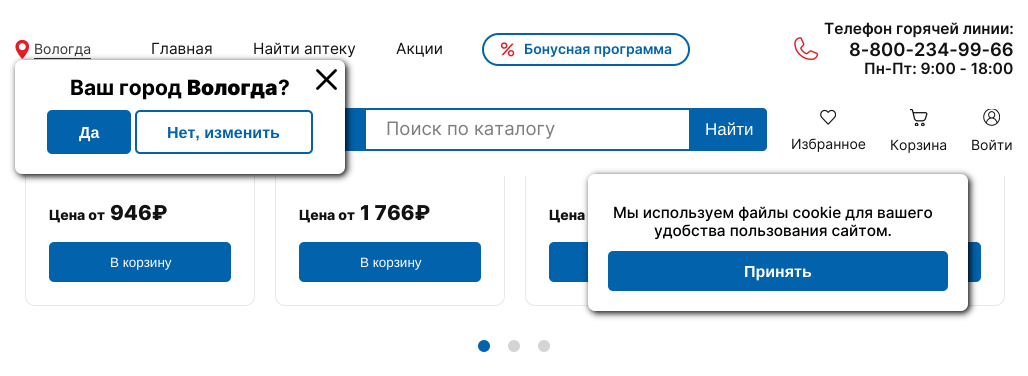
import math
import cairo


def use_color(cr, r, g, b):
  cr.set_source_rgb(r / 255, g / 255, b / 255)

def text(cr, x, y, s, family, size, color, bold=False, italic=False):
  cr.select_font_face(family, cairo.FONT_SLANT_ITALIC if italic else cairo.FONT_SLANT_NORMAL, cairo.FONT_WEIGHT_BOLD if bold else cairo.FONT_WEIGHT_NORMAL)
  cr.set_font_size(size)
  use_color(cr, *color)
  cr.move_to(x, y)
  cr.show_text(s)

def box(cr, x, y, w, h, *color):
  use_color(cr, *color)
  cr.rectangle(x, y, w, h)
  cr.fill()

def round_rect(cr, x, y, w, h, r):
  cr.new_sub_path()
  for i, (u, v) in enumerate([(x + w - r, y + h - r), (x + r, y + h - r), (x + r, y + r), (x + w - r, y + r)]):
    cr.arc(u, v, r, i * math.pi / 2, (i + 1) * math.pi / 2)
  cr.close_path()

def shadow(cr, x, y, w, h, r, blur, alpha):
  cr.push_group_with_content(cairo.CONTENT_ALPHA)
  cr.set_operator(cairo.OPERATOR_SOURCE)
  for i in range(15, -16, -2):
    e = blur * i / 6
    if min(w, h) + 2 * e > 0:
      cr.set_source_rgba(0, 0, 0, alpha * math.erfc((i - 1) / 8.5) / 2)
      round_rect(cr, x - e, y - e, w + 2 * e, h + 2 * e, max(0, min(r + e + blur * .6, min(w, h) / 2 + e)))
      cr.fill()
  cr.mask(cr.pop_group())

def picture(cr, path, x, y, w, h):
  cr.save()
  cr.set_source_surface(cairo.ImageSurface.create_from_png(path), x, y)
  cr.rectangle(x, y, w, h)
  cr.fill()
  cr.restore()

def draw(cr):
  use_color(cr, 255, 255, 255)
  cr.paint()
  round_rect(cr, 25.5, -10.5, 229, 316, 9.5)
  use_color(cr, 231, 231, 231)
  cr.set_line_width(1)
  cr.stroke()
  round_rect(cr, 275.5, -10.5, 229, 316, 9.5)
  cr.stroke()
  round_rect(cr, 525.5, -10.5, 229, 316, 9.5)
  cr.stroke()
  round_rect(cr, 775.5, -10.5, 229, 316, 9.5)
  cr.stroke()
  box(cr, 25, 0, 980, 176, 255, 255, 255)
  picture(cr, "img_01.png", 15, 39, 14, 20)
  box(cr, 34, 58, 57, 1, 51, 51, 51)
  round_rect(cr, 483, 34, 206, 31, 15.5)
  use_color(cr, 2, 98, 172)
  cr.set_line_width(2)
  cr.stroke()
  picture(cr, "img_02.png", 500, 42, 15, 15)
  picture(cr, "img_03.png", 794, 37, 25, 24)
  box(cr, 345, 108, 19, 43, 2, 98, 172)
  cr.rectangle(365, 109, 325, 41)
  cr.stroke()
  cr.new_path()
  cr.move_to(691, 108)
  cr.line_to(763, 108)
  cr.curve_to(765, 108, 767, 110, 767, 112)
  cr.line_to(767, 147)
  cr.curve_to(767, 149, 765, 151, 763, 151)
  cr.line_to(691, 151)
  cr.close_path()
  cr.fill()
  picture(cr, "img_04.png", 820, 109, 16, 16)
  picture(cr, "img_05.png", 910, 109, 18, 17)
  picture(cr, "img_06.png", 983, 109, 17, 17)
  use_color(cr, 0, 0, 0)
  shadow(cr, 17, 62, 330, 114, 7, 3.5, 1)
  use_color(cr, 255, 255, 255)
  round_rect(cr, 15, 60, 330, 114, 7)
  cr.fill()
  use_color(cr, 2, 98, 172)
  round_rect(cr, 48, 111, 82, 42, 4)
  cr.fill_preserve()
  cr.stroke()
  round_rect(cr, 136, 111, 176, 42, 4)
  cr.stroke()
  cr.new_path()
  cr.move_to(335.5, 88.5)
  cr.line_to(317.5, 70.5)
  cr.move_to(335.5, 70.5)
  cr.line_to(317.5, 88.5)
  use_color(cr, 0, 0, 0)
  cr.set_line_width(2.8)
  cr.set_line_cap(cairo.LINE_CAP_ROUND)
  cr.set_line_join(cairo.LINE_JOIN_BEVEL)
  cr.stroke()
  use_color(cr, 2, 98, 172)
  round_rect(cr, 49, 242, 182, 40, 5)
  cr.fill()
  round_rect(cr, 299, 242, 182, 40, 5)
  cr.fill()
  round_rect(cr, 549, 242, 182, 40, 5)
  cr.fill()
  round_rect(cr, 799, 242, 182, 40, 5)
  cr.fill()
  cr.arc(484, 346, 6, 0, 2 * math.pi)
  cr.fill()
  use_color(cr, 212, 212, 212)
  cr.arc(514, 346, 6, 0, 2 * math.pi)
  cr.fill()
  cr.arc(544, 346, 6, 0, 2 * math.pi)
  cr.fill()
  use_color(cr, 0, 0, 0)
  shadow(cr, 590, 176, 380, 137, 7, 3.5, 1)
  use_color(cr, 255, 255, 255)
  round_rect(cr, 588, 174, 380, 137, 7)
  cr.fill()
  use_color(cr, 2, 98, 172)
  round_rect(cr, 608, 251, 340, 40, 5)
  cr.fill()
  text(cr, 34, 54, "Вологда", "Inter", 14, (51, 51, 51))
  text(cr, 151, 54, "Главная", "Inter", 15.4, (18, 18, 18))
  text(cr, 253, 54, "Найти аптеку", "Inter", 15.4, (18, 18, 18))
  text(cr, 396, 54, "Акции", "Inter", 15.4, (18, 18, 18))
  text(cr, 524, 54, "Бонусная программа", "Inter SemiBold", 14, (2, 98, 172))
  text(cr, 824, 34, "Телефон горячей линии:", "Inter SemiBold", 15.5, (18, 18, 18))
  text(cr, 849, 56, "8-800-234-99-66", "Inter SemiBold", 18.25, (18, 18, 18))
  text(cr, 864, 74, "Пн-Пт: 9:00 - 18:00", "Inter SemiBold", 15.5, (18, 18, 18))
  text(cr, 386, 135, "Поиск по каталогу", "Inter", 18.5, (125, 125, 125))
  text(cr, 705, 135, "Найти", "Liberation Sans", 17, (255, 255, 255))
  text(cr, 791, 149, "Избранное", "Inter", 14, (18, 18, 18))
  text(cr, 890, 150, "Корзина", "Inter", 14, (18, 18, 18))
  text(cr, 971, 150, "Войти", "Inter", 14, (18, 18, 18))
  text(cr, 70, 95, "Ваш город", "Inter", 21, (0, 0, 0), bold=True)
  text(cr, 187, 95, "Вологда", "Inter Black", 21, (0, 0, 0))
  text(cr, 278, 95, "?", "Inter", 21, (0, 0, 0), bold=True)
  text(cr, 79, 138, "Да", "Liberation Sans", 16, (255, 255, 255), bold=True)
  text(cr, 167, 138, "Нет, изменить", "Liberation Sans", 16, (2, 98, 172), bold=True)
  text(cr, 49, 220, "Цена от", "Inter ExtraBold", 14, (18, 18, 18))
  text(cr, 110, 220, "946₽", "Inter ExtraBold", 20.5, (18, 18, 18))
  text(cr, 110, 267, "В корзину", "Liberation Sans", 13.5, (255, 255, 255))
  text(cr, 299, 220, "Цена от", "Inter ExtraBold", 14, (18, 18, 18))
  text(cr, 360, 220, "1 766₽", "Inter ExtraBold", 20.5, (18, 18, 18))
  text(cr, 360, 267, "В корзину", "Liberation Sans", 13.5, (255, 255, 255))
  text(cr, 549, 220, "Цена", "Inter ExtraBold", 14, (18, 18, 18))
  text(cr, 613, 218, "Мы используем файлы cookie для вашего", "Inter Medium", 15.4, (0, 0, 0))
  text(cr, 654, 236, "удобства пользования сайтом.", "Inter Medium", 15.4, (0, 0, 0))
  text(cr, 744, 277, "Принять", "Liberation Sans", 16, (255, 255, 255), bold=True)


surface = cairo.ImageSurface(cairo.FORMAT_RGB24, 1028, 376)
cr = cairo.Context(surface)
options = cairo.FontOptions()
options.set_hint_metrics(cairo.HINT_METRICS_OFF)
options.set_hint_style(cairo.HINT_STYLE_NONE)
cr.set_font_options(options)
cr.set_miter_limit(4)
draw(cr)
surface.write_to_png("out.png")
